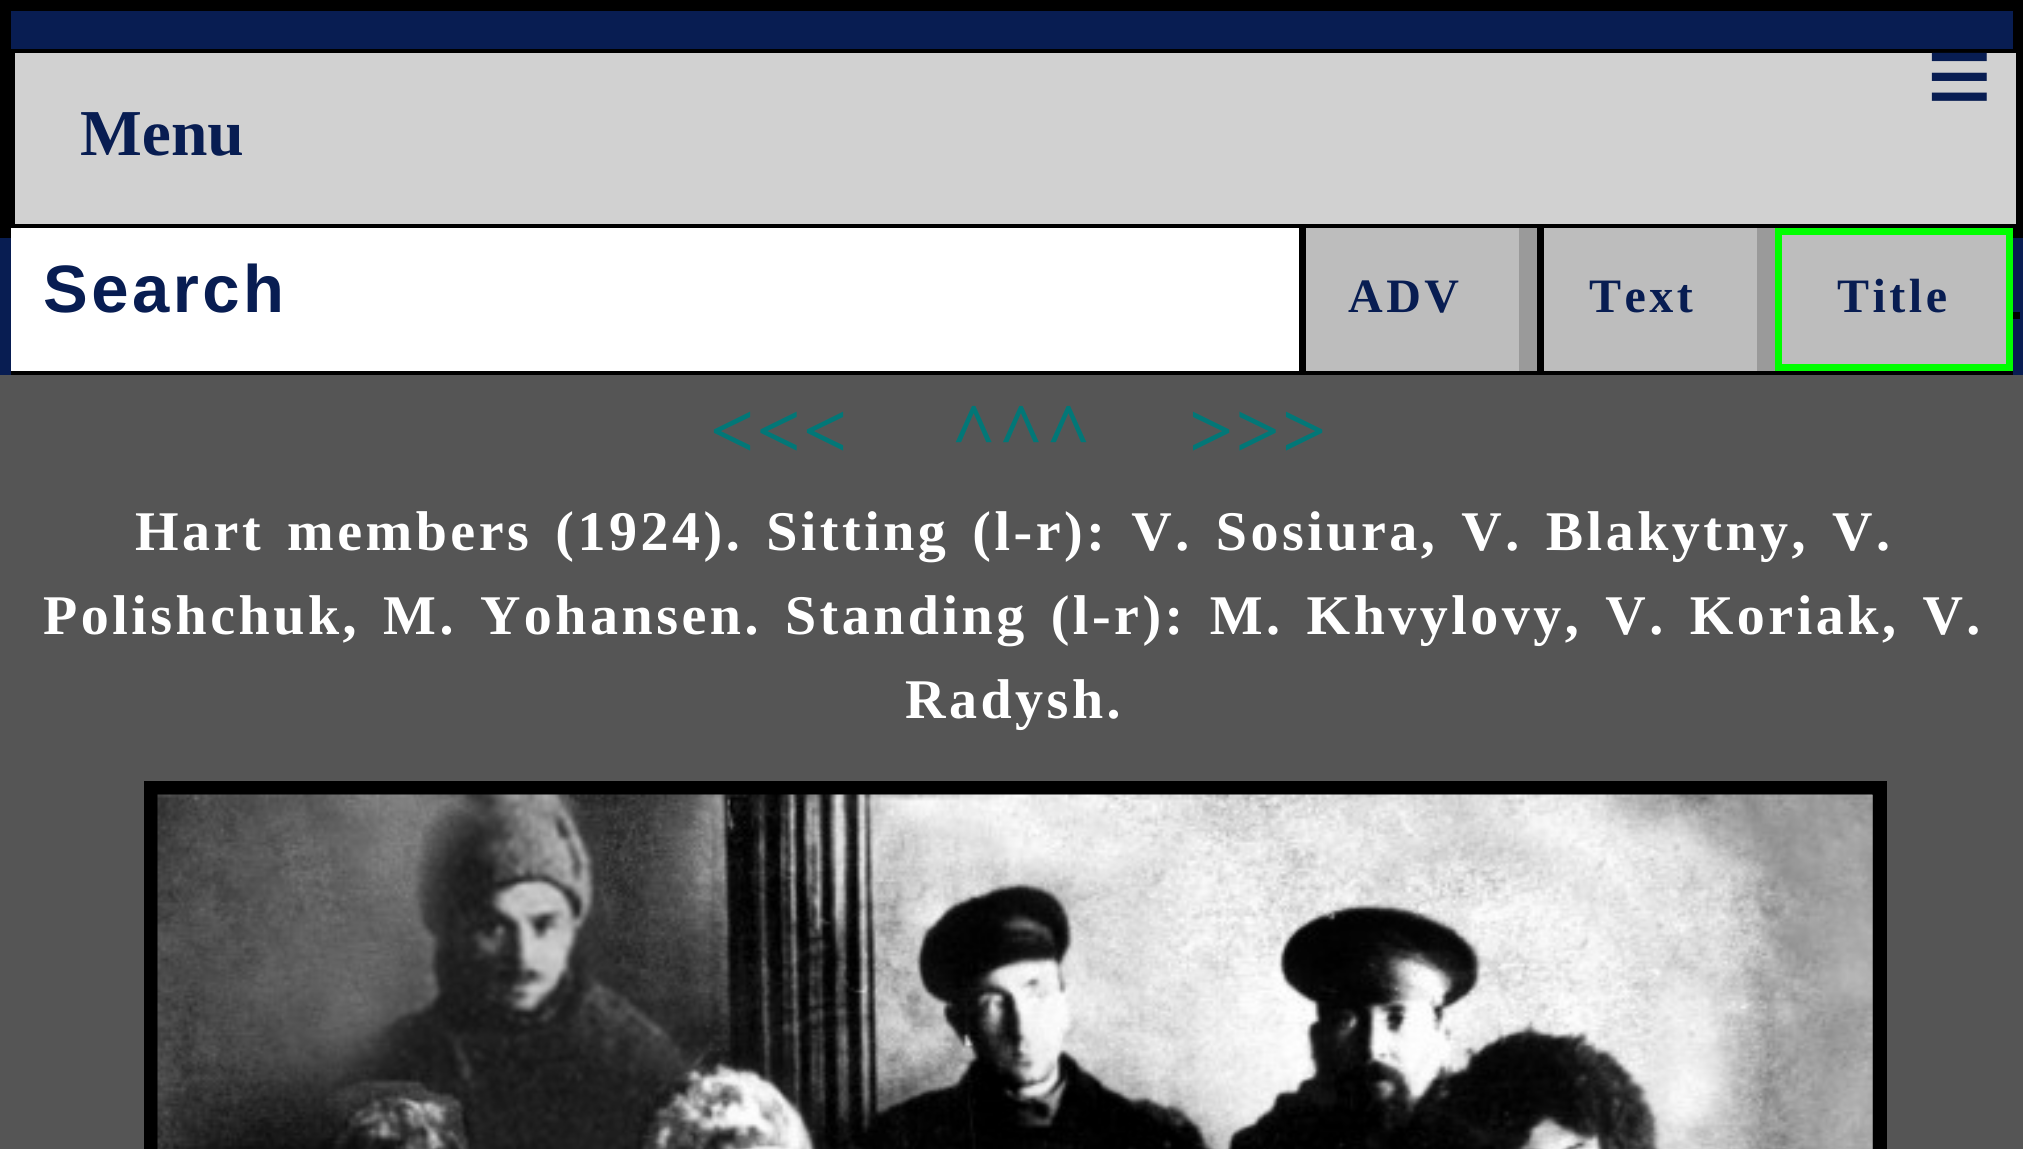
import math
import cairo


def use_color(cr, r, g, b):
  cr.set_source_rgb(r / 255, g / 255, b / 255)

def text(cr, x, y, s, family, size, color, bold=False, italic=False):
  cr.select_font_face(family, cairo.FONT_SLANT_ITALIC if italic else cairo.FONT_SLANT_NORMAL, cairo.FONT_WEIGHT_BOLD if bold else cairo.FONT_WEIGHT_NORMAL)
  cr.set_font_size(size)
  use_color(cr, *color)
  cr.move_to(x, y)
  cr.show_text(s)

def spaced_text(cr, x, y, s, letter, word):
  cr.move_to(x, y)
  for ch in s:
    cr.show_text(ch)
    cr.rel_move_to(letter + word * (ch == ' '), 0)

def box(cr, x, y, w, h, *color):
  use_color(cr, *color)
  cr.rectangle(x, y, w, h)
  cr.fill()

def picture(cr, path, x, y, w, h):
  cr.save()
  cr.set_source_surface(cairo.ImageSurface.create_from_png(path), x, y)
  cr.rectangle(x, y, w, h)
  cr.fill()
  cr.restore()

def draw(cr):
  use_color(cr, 8, 29, 82)
  cr.paint()
  cr.rectangle(5.5, 5.5, 2012, 227)
  use_color(cr, 0, 0, 0)
  cr.set_line_width(11)
  cr.stroke()
  box(cr, 2012, 11, 1, 38, 8, 29, 82)
  use_color(cr, 209, 209, 209)
  cr.rectangle(13, 51, 2005, 175)
  cr.fill_preserve()
  use_color(cr, 0, 0, 0)
  cr.set_line_width(4)
  cr.stroke()
  box(cr, 11, 228, 1288, 143, 255, 255, 255)
  box(cr, 11, 371, 2002, 4, 0, 0, 0)
  box(cr, 1306, 228, 213, 143, 189, 189, 189)
  box(cr, 1519, 228, 18, 143, 154, 154, 154)
  box(cr, 1299, 238, 7, 133, 0, 0, 0)
  box(cr, 1544, 228, 213, 143, 189, 189, 189)
  box(cr, 1757, 228, 18, 143, 154, 154, 154)
  box(cr, 1537, 238, 7, 133, 0, 0, 0)
  use_color(cr, 189, 189, 189)
  cr.rectangle(1778.5, 231.5, 231, 136)
  cr.fill_preserve()
  use_color(cr, 0, 255, 0)
  cr.set_line_width(7)
  cr.stroke()
  box(cr, 2013, 312, 7, 7, 0, 0, 0)
  box(cr, 0, 375, 2023, 774, 85, 85, 85)
  cr.rectangle(151, 788, 1729, 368)
  use_color(cr, 0, 0, 0)
  cr.set_line_width(14)
  cr.stroke()
  picture(cr, "img_01.png", 157, 794, 1716, 355)
  text(cr, 1926, 116, "≡", "Liberation Serif", 118, (8, 29, 82), bold=True)
  text(cr, 80, 155, "Menu", "Liberation Serif", 65.5, (8, 29, 82), bold=True)
  cr.select_font_face("Liberation Sans", cairo.FONT_SLANT_NORMAL, cairo.FONT_WEIGHT_BOLD)
  cr.set_font_size(67)
  spaced_text(cr, 43, 312, "Search", 3.5, 0)
  cr.select_font_face("Liberation Serif", cairo.FONT_SLANT_NORMAL, cairo.FONT_WEIGHT_BOLD)
  cr.set_font_size(48)
  spaced_text(cr, 1348, 312, "ADV", 3.5, 0)
  spaced_text(cr, 1589, 312, "Text", 3.5, 0)
  spaced_text(cr, 1837, 312, "Title", 3.5, 0)
  cr.set_font_size(78)
  use_color(cr, 2, 119, 119)
  spaced_text(cr, 710, 457, "<<<", 2, 0)
  spaced_text(cr, 951, 457, "^^^", 2, 0)
  spaced_text(cr, 1189, 457, ">>>", 2, 0)
  cr.set_font_size(56)
  use_color(cr, 255, 255, 255)
  spaced_text(cr, 135, 550, "Hart members (1924). Sitting (l-r): V. Sosiura, V. Blakytny, V.", 3.5, 5.5)
  spaced_text(cr, 43, 634, "Polishchuk, M. Yohansen. Standing (l-r): M. Khvylovy, V. Koriak, V.", 3.5, 5.5)
  spaced_text(cr, 905, 718, "Radysh.", 3.5, 0)


surface = cairo.ImageSurface(cairo.FORMAT_RGB24, 2023, 1149)
cr = cairo.Context(surface)
options = cairo.FontOptions()
options.set_hint_metrics(cairo.HINT_METRICS_OFF)
options.set_hint_style(cairo.HINT_STYLE_NONE)
cr.set_font_options(options)
cr.set_miter_limit(4)
draw(cr)
surface.write_to_png("out.png")
